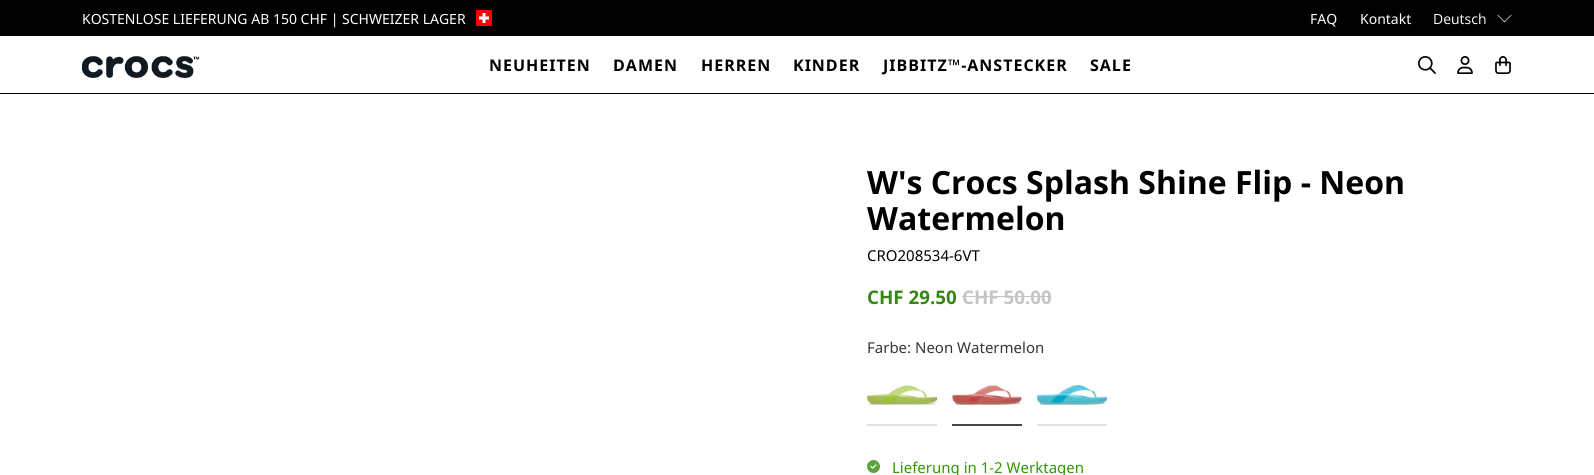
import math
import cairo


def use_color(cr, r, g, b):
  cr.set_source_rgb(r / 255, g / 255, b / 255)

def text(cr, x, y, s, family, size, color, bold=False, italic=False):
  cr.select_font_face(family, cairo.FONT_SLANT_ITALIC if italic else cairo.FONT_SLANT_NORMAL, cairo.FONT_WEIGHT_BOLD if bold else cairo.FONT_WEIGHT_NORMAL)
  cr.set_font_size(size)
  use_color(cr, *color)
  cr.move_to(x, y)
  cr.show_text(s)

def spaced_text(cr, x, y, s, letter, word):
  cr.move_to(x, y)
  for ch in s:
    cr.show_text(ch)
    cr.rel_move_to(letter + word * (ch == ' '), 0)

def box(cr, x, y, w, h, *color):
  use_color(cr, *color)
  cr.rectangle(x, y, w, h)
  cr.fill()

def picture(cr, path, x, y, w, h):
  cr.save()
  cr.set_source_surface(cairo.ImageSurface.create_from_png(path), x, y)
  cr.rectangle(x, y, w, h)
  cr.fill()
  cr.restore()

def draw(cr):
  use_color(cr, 255, 255, 255)
  cr.paint()
  box(cr, 0, 0, 1594, 36, 0, 0, 0)
  picture(cr, "img_01.png", 476, 10, 16, 16)
  picture(cr, "img_02.png", 1497, 14, 15, 9)
  box(cr, 0, 93, 1594, 1, 0, 0, 0)
  picture(cr, "img_03.png", 82, 56, 118, 22)
  picture(cr, "img_04.png", 1418, 56, 18, 18)
  picture(cr, "img_05.png", 1457, 56, 16, 18)
  picture(cr, "img_06.png", 1495, 56, 16, 18)
  box(cr, 962, 296, 89, 1, 197, 197, 197)
  box(cr, 867, 424, 70, 2, 228, 225, 229)
  picture(cr, "img_07.png", 867, 383, 70, 23)
  box(cr, 952, 424, 70, 2, 70, 69, 70)
  picture(cr, "img_08.png", 952, 383, 70, 22)
  box(cr, 1037, 424, 70, 2, 228, 225, 229)
  picture(cr, "img_09.png", 1037, 383, 70, 22)
  picture(cr, "img_10.png", 867, 460, 13, 13)
  text(cr, 82, 24, "KOSTENLOSE LIEFERUNG AB 150 CHF | SCHWEIZER LAGER", "Noto Sans", 14, (255, 255, 255))
  text(cr, 1310, 24, "FAQ", "Noto Sans", 14, (255, 255, 255))
  text(cr, 1360, 24, "Kontakt", "Noto Sans", 14, (255, 255, 255))
  text(cr, 1433, 24, "Deutsch", "Open Sans", 14, (255, 255, 255))
  cr.select_font_face("Noto Sans", cairo.FONT_SLANT_NORMAL, cairo.FONT_WEIGHT_BOLD)
  cr.set_font_size(16)
  use_color(cr, 0, 0, 0)
  spaced_text(cr, 489, 71, "NEUHEITEN", 1, 0)
  spaced_text(cr, 613, 71, "DAMEN", 1, 0)
  spaced_text(cr, 701, 71, "HERREN", 1, 0)
  spaced_text(cr, 793, 71, "KINDER", 1, 0)
  spaced_text(cr, 883, 71, "JIBBITZ™-ANSTECKER", 1, 0)
  spaced_text(cr, 1090, 71, "SALE", 1, 0)
  text(cr, 867, 194, "W's Crocs Splash Shine Flip - Neon", "Noto Sans", 32, (0, 0, 0), bold=True)
  text(cr, 867, 230, "Watermelon", "Noto Sans", 32, (0, 0, 0), bold=True)
  text(cr, 867, 261, "CRO208534-6VT", "Noto Sans", 15, (0, 0, 0))
  text(cr, 867, 304, "CHF 29.50", "Noto Sans", 18.75, (54, 134, 23), bold=True)
  text(cr, 962, 304, "CHF 50.00", "Noto Sans", 18.75, (197, 197, 197), bold=True)
  text(cr, 867, 353, "Farbe: Neon Watermelon", "Noto Sans", 15, (54, 54, 54))
  text(cr, 892, 473, "Lieferung in 1-2 Werktagen", "Noto Sans", 15, (50, 151, 3))


surface = cairo.ImageSurface(cairo.FORMAT_RGB24, 1594, 475)
cr = cairo.Context(surface)
options = cairo.FontOptions()
options.set_hint_metrics(cairo.HINT_METRICS_OFF)
options.set_hint_style(cairo.HINT_STYLE_NONE)
cr.set_font_options(options)
cr.set_miter_limit(4)
draw(cr)
surface.write_to_png("out.png")
